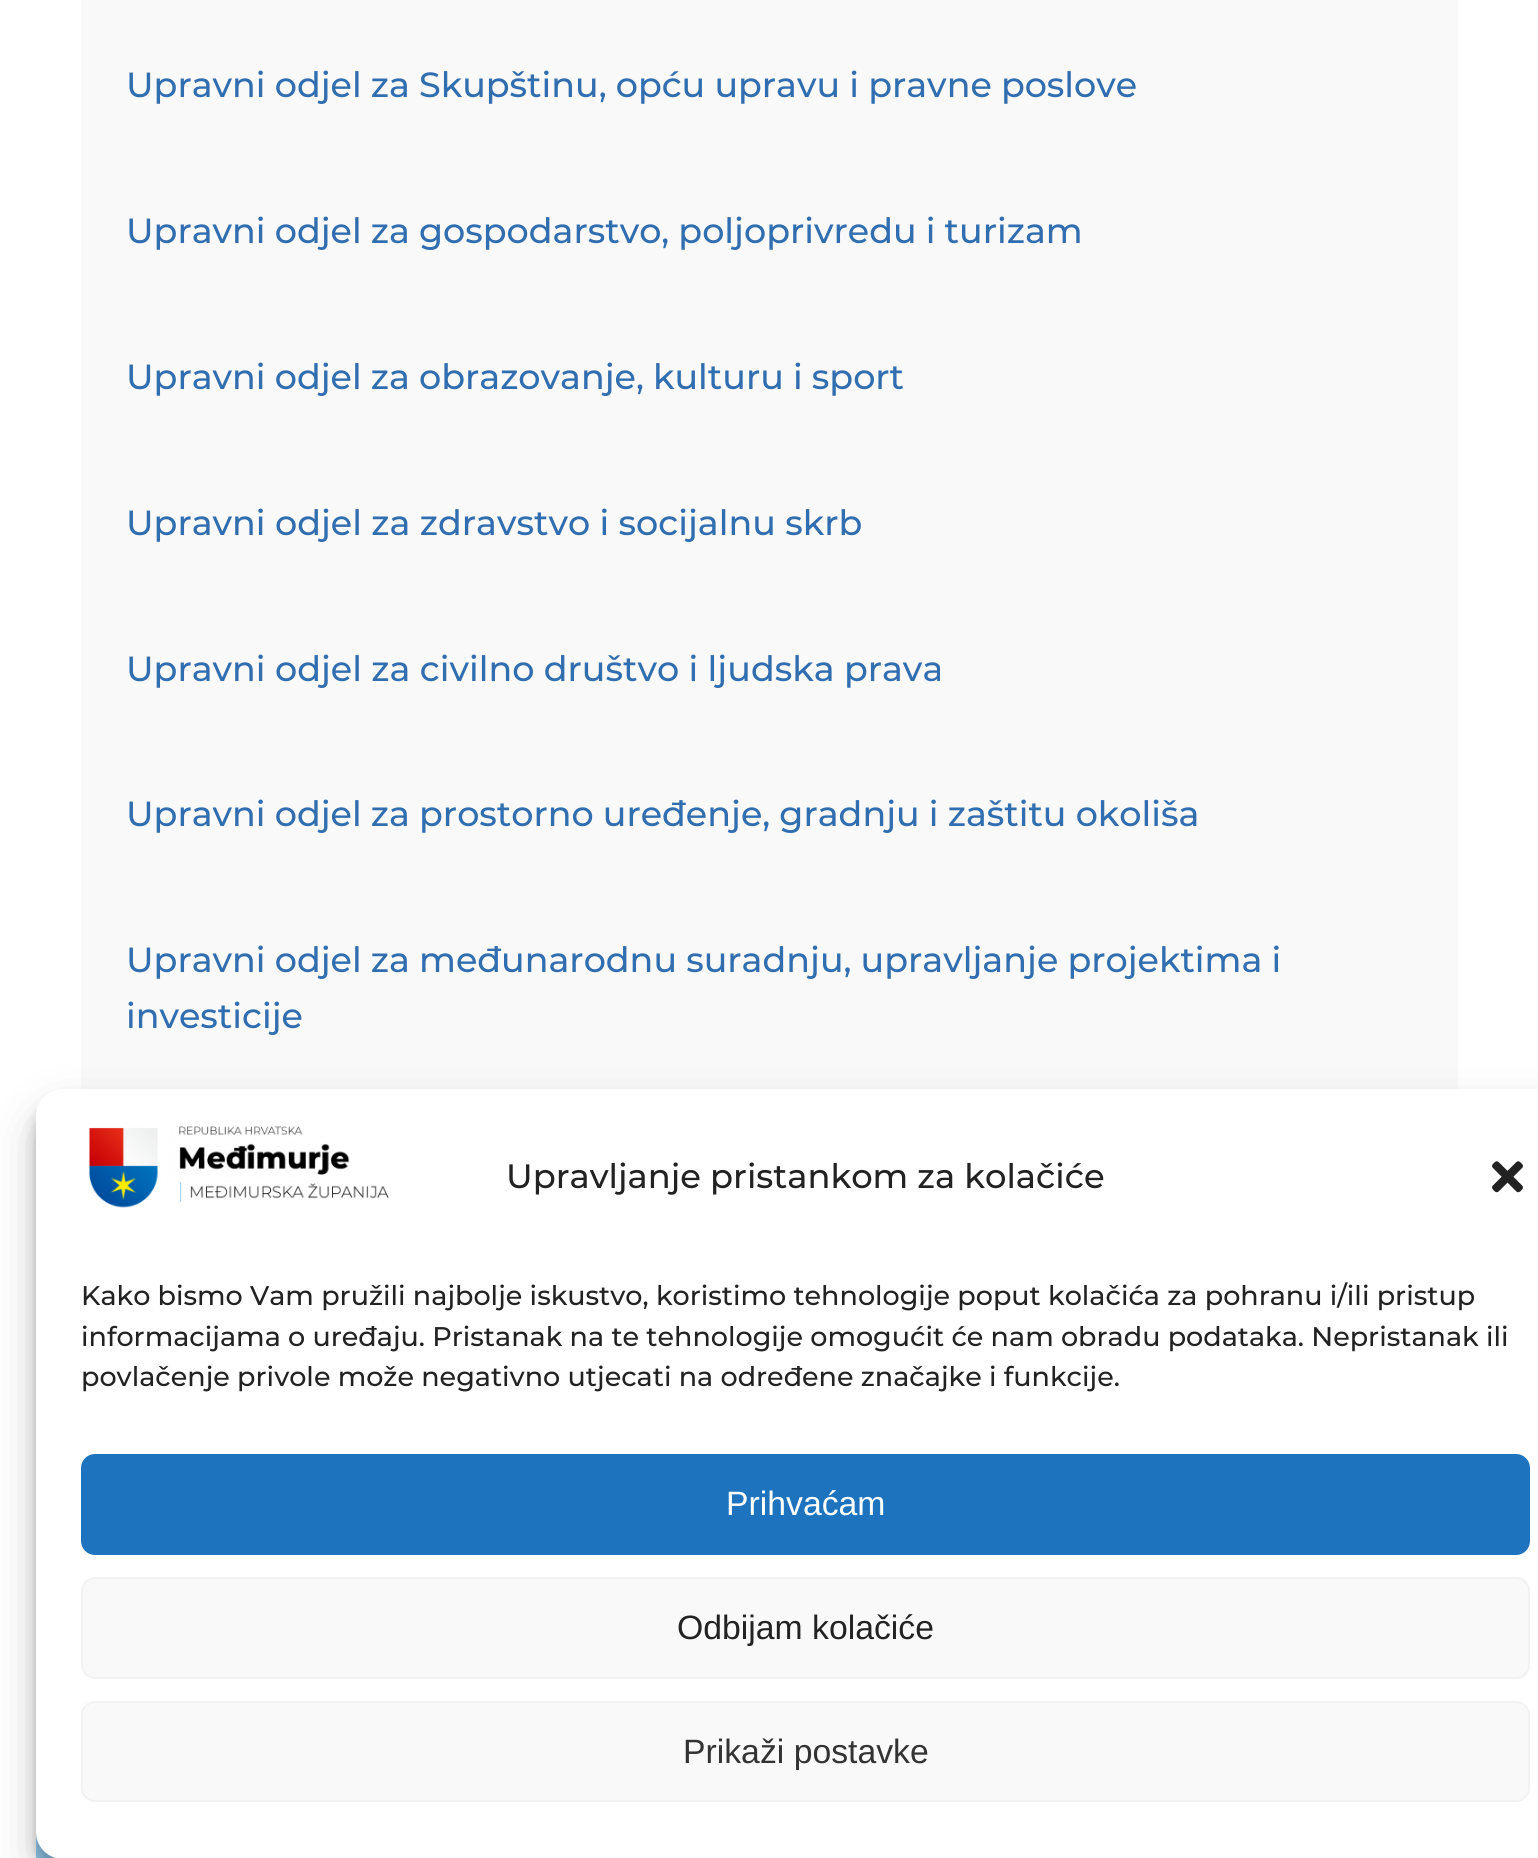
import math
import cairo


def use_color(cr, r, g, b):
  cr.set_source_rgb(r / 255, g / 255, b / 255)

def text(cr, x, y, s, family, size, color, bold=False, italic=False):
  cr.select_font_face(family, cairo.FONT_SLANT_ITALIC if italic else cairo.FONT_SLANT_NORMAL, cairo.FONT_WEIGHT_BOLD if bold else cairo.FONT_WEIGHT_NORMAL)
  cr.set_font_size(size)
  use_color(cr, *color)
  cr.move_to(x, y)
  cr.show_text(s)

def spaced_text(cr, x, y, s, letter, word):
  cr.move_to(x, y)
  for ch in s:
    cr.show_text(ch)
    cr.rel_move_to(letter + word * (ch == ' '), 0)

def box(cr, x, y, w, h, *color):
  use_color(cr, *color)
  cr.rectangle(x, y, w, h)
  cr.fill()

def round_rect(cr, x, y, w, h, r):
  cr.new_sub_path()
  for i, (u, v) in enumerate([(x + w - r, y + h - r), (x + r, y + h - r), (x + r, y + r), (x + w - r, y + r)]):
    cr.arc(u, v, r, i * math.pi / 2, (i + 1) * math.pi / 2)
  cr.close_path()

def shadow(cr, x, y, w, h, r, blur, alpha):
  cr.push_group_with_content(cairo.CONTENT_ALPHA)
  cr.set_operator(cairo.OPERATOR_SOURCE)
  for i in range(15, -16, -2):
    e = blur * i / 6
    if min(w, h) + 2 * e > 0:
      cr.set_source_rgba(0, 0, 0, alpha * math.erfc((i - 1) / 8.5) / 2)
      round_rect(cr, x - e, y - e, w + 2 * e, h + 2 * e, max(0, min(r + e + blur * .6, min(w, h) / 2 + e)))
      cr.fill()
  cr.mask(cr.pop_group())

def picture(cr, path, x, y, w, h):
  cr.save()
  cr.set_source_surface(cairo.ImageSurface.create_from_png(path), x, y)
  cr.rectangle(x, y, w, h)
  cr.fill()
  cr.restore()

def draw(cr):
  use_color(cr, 255, 255, 255)
  cr.paint()
  box(cr, 81, 0, 1377, 1089, 249, 249, 250)
  box(cr, 36, 1832, 20, 26, 152, 208, 245)
  use_color(cr, 0, 0, 0)
  shadow(cr, 36, 1103, 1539, 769, 27, 7, 0.23)
  shadow(cr, 36, 1112, 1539, 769, 27, 22.5, 0.19)
  use_color(cr, 255, 255, 255)
  round_rect(cr, 36, 1089, 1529, 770, 27)
  cr.fill()
  picture(cr, "img_01.png", 89, 1126, 300, 82)
  picture(cr, "img_02.png", 1492, 1161, 31, 32)
  use_color(cr, 30, 115, 190)
  round_rect(cr, 82, 1455, 1447, 99, 13)
  cr.fill_preserve()
  cr.stroke()
  use_color(cr, 249, 249, 249)
  round_rect(cr, 82, 1578, 1447, 100, 13)
  cr.fill_preserve()
  use_color(cr, 242, 242, 242)
  cr.stroke()
  use_color(cr, 249, 249, 249)
  round_rect(cr, 82, 1702, 1447, 99, 13)
  cr.fill_preserve()
  use_color(cr, 242, 242, 242)
  cr.stroke()
  cr.select_font_face("Montserrat Medium")
  cr.set_font_size(34.9)
  use_color(cr, 48, 110, 175)
  spaced_text(cr, 126, 97, "Upravni odjel za Skupštinu, opću upravu i pravne poslove", 0, -0.25)
  spaced_text(cr, 126, 243, "Upravni odjel za gospodarstvo, poljoprivredu i turizam", 0, -0.25)
  spaced_text(cr, 126, 389, "Upravni odjel za obrazovanje, kulturu i sport", 0, -0.25)
  text(cr, 126, 535, "Upravni odjel za zdravstvo i socijalnu skrb", "Montserrat Medium", 34.9, (48, 110, 175))
  text(cr, 126, 681, "Upravni odjel za civilno društvo i ljudska prava", "Montserrat Medium", 34.9, (48, 110, 175))
  spaced_text(cr, 126, 826, "Upravni odjel za prostorno uređenje, gradnju i zaštitu okoliša", 0, -0.25)
  spaced_text(cr, 126, 972, "Upravni odjel za međunarodnu suradnju, upravljanje projektima i", 0, -0.25)
  text(cr, 126, 1028, "investicije", "Montserrat Medium", 34.9, (48, 110, 175))
  text(cr, 506, 1188, "Upravljanje pristankom za kolačiće", "Montserrat Medium", 33.75, (34, 34, 34))
  text(cr, 81, 1305, "Kako bismo Vam pružili najbolje iskustvo, koristimo tehnologije poput kolačića za pohranu i/ili pristup", "Montserrat Medium", 27, (34, 34, 34))
  text(cr, 81, 1346, "informacijama o uređaju. Pristanak na te tehnologije omogućit će nam obradu podataka. Nepristanak ili", "Montserrat Medium", 27, (34, 34, 34))
  text(cr, 81, 1386, "povlačenje privole može negativno utjecati na određene značajke i funkcije.", "Montserrat Medium", 27, (34, 34, 34))
  text(cr, 726, 1515, "Prihvaćam", "Liberation Sans", 33.75, (255, 255, 255))
  text(cr, 677, 1639, "Odbijam kolačiće", "Liberation Sans", 33.75, (34, 34, 34))
  text(cr, 683, 1763, "Prikaži postavke", "Liberation Sans", 33.75, (51, 51, 51))


surface = cairo.ImageSurface(cairo.FORMAT_RGB24, 1538, 1858)
cr = cairo.Context(surface)
options = cairo.FontOptions()
options.set_hint_metrics(cairo.HINT_METRICS_OFF)
options.set_hint_style(cairo.HINT_STYLE_NONE)
cr.set_font_options(options)
cr.set_miter_limit(4)
draw(cr)
surface.write_to_png("out.png")
